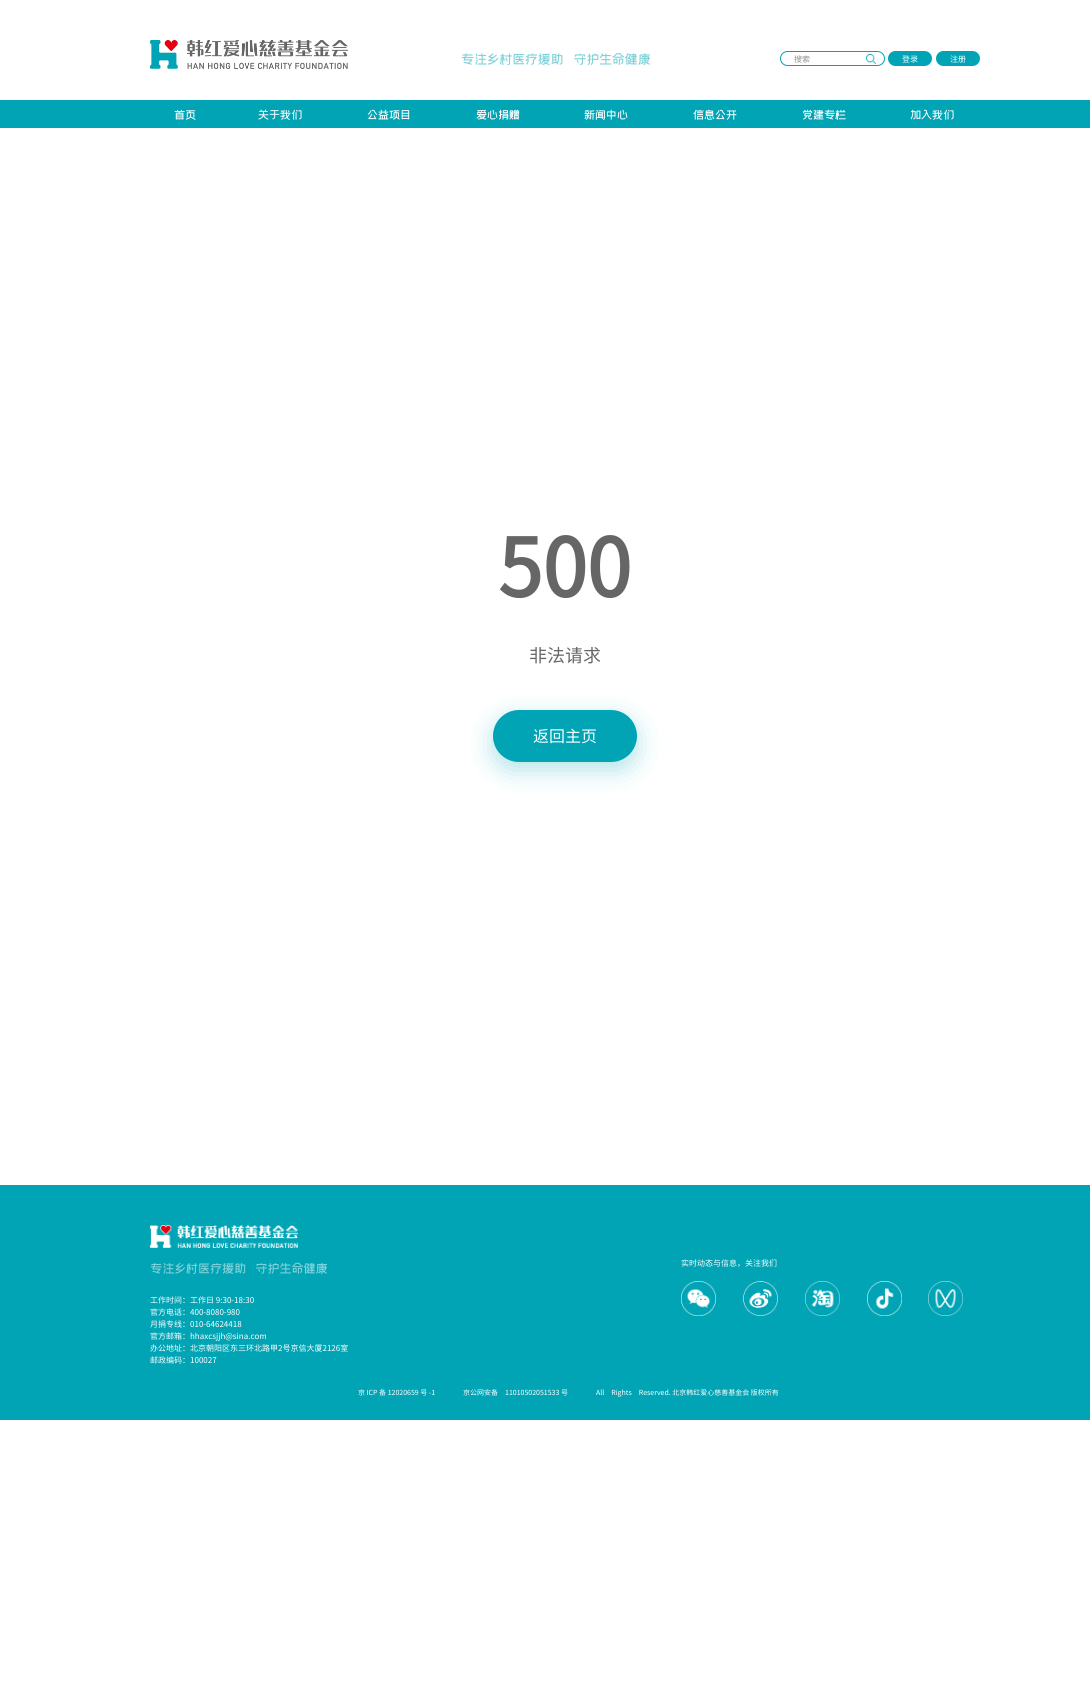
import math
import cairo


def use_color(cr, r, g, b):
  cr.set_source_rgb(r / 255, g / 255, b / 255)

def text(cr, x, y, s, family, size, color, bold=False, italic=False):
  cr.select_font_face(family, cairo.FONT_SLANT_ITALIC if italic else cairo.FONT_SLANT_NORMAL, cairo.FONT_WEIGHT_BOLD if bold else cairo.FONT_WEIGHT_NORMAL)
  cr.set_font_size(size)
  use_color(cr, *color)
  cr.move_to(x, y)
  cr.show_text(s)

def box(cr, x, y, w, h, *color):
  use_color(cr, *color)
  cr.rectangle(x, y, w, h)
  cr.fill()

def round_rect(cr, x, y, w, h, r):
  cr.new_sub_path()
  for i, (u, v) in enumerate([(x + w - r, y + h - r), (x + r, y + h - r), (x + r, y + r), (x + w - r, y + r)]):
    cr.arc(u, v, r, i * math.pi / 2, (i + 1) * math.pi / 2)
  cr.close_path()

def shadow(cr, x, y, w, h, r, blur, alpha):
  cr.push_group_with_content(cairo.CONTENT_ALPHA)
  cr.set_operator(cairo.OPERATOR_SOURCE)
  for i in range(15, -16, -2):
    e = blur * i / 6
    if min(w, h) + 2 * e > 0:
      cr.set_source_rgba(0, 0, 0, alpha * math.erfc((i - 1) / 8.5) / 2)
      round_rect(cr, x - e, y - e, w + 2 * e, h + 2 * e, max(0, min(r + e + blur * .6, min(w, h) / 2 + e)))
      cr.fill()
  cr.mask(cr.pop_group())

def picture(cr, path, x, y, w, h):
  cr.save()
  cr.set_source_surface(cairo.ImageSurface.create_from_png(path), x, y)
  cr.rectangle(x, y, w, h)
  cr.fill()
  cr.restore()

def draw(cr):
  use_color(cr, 255, 255, 255)
  cr.paint()
  picture(cr, "img_01.png", 150, 40, 198, 29)
  round_rect(cr, 780.5, 51.5, 104, 14, 7)
  use_color(cr, 0, 164, 181)
  cr.set_line_width(1)
  cr.stroke()
  picture(cr, "img_02.png", 866, 54, 10, 10)
  round_rect(cr, 888, 51, 44, 15, 7.5)
  cr.fill()
  round_rect(cr, 936, 51, 44, 15, 7.5)
  cr.fill()
  box(cr, 0, 100, 1090, 28, 0, 164, 181)
  use_color(cr, 0, 164, 181)
  shadow(cr, 493, 718, 144, 52, 26, 12.5, 0.3)
  use_color(cr, 0, 164, 181)
  round_rect(cr, 493, 710, 144, 52, 26)
  cr.fill()
  box(cr, 0, 1185, 1090, 235, 0, 164, 181)
  picture(cr, "img_03.png", 150, 1225, 148, 23)
  picture(cr, "img_04.png", 681, 1281, 35, 35)
  picture(cr, "img_05.png", 743, 1281, 35, 35)
  picture(cr, "img_06.png", 805, 1281, 35, 35)
  picture(cr, "img_07.png", 867, 1281, 35, 35)
  picture(cr, "img_08.png", 928, 1281, 35, 35)
  text(cr, 461, 63, "专注乡村医疗援助    守护生命健康", "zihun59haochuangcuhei", 12.8, (128, 210, 218))
  text(cr, 794, 62, "搜索", "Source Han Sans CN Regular", 8, (141, 142, 142))
  text(cr, 902, 62, "登录", "Source Han Sans CN Regular", 8, (255, 255, 255))
  text(cr, 950, 62, "注册", "Source Han Sans CN Regular", 8, (255, 255, 255))
  text(cr, 174, 118, "首页", "zihun59haochuangcuhei", 11, (255, 255, 255))
  text(cr, 258, 118, "关于我们", "zihun59haochuangcuhei", 11, (255, 255, 255))
  text(cr, 367, 118, "公益项目", "zihun59haochuangcuhei", 11, (255, 255, 255))
  text(cr, 476, 118, "爱心捐赠", "zihun59haochuangcuhei", 11, (255, 255, 255))
  text(cr, 584, 118, "新闻中心", "zihun59haochuangcuhei", 11, (255, 255, 255))
  text(cr, 693, 118, "信息公开", "zihun59haochuangcuhei", 11, (255, 255, 255))
  text(cr, 802, 118, "党建专栏", "zihun59haochuangcuhei", 11, (255, 255, 255))
  text(cr, 910, 118, "加入我们", "zihun59haochuangcuhei", 11, (255, 255, 255))
  text(cr, 498, 597, "500", "Source Han Sans CN Regular", 80, (102, 102, 102), bold=True)
  text(cr, 529, 662, "非法请求", "Source Han Sans CN Regular", 18, (102, 102, 102))
  text(cr, 533, 742, "返回主页", "Source Han Sans CN Regular", 16, (255, 255, 255))
  text(cr, 150, 1272, "专注乡村医疗援助    守护生命健康", "zihun59haochuangcuhei", 12, (128, 210, 218))
  text(cr, 150, 1303, "工作时间：工作日 9:30-18:30", "Source Han Sans CN Regular", 8, (255, 255, 255))
  text(cr, 150, 1315, "官方电话：400-8080-980", "Source Han Sans CN Regular", 8, (255, 255, 255))
  text(cr, 150, 1327, "月捐专线：010-64624418", "Source Han Sans CN Regular", 8, (255, 255, 255))
  text(cr, 150, 1339, "官方邮箱：hhaxcsjjh@sina.com", "Source Han Sans CN Regular", 8, (255, 255, 255))
  text(cr, 150, 1351, "办公地址：北京朝阳区东三环北路甲2号京信大厦2126室", "Source Han Sans CN Regular", 8, (255, 255, 255))
  text(cr, 150, 1363, "邮政编码：100027", "Source Han Sans CN Regular", 8, (255, 255, 255))
  text(cr, 681, 1266, "实时动态与信息，关注我们", "Source Han Sans CN Regular", 8, (255, 255, 255))
  text(cr, 358, 1395, "京 ICP 备 12020659 号 -1", "Source Han Sans CN Regular", 7, (255, 255, 255))
  text(cr, 463, 1395, "京公网安备 11010502051533 号", "Source Han Sans CN Regular", 7, (255, 255, 255))
  text(cr, 596, 1395, "All Rights Reserved. 北京韩红爱心慈善基金会 版权所有", "Source Han Sans CN Regular", 7, (255, 255, 255))


surface = cairo.ImageSurface(cairo.FORMAT_RGB24, 1090, 1693)
cr = cairo.Context(surface)
options = cairo.FontOptions()
options.set_hint_metrics(cairo.HINT_METRICS_OFF)
options.set_hint_style(cairo.HINT_STYLE_NONE)
cr.set_font_options(options)
cr.set_miter_limit(4)
draw(cr)
surface.write_to_png("out.png")
